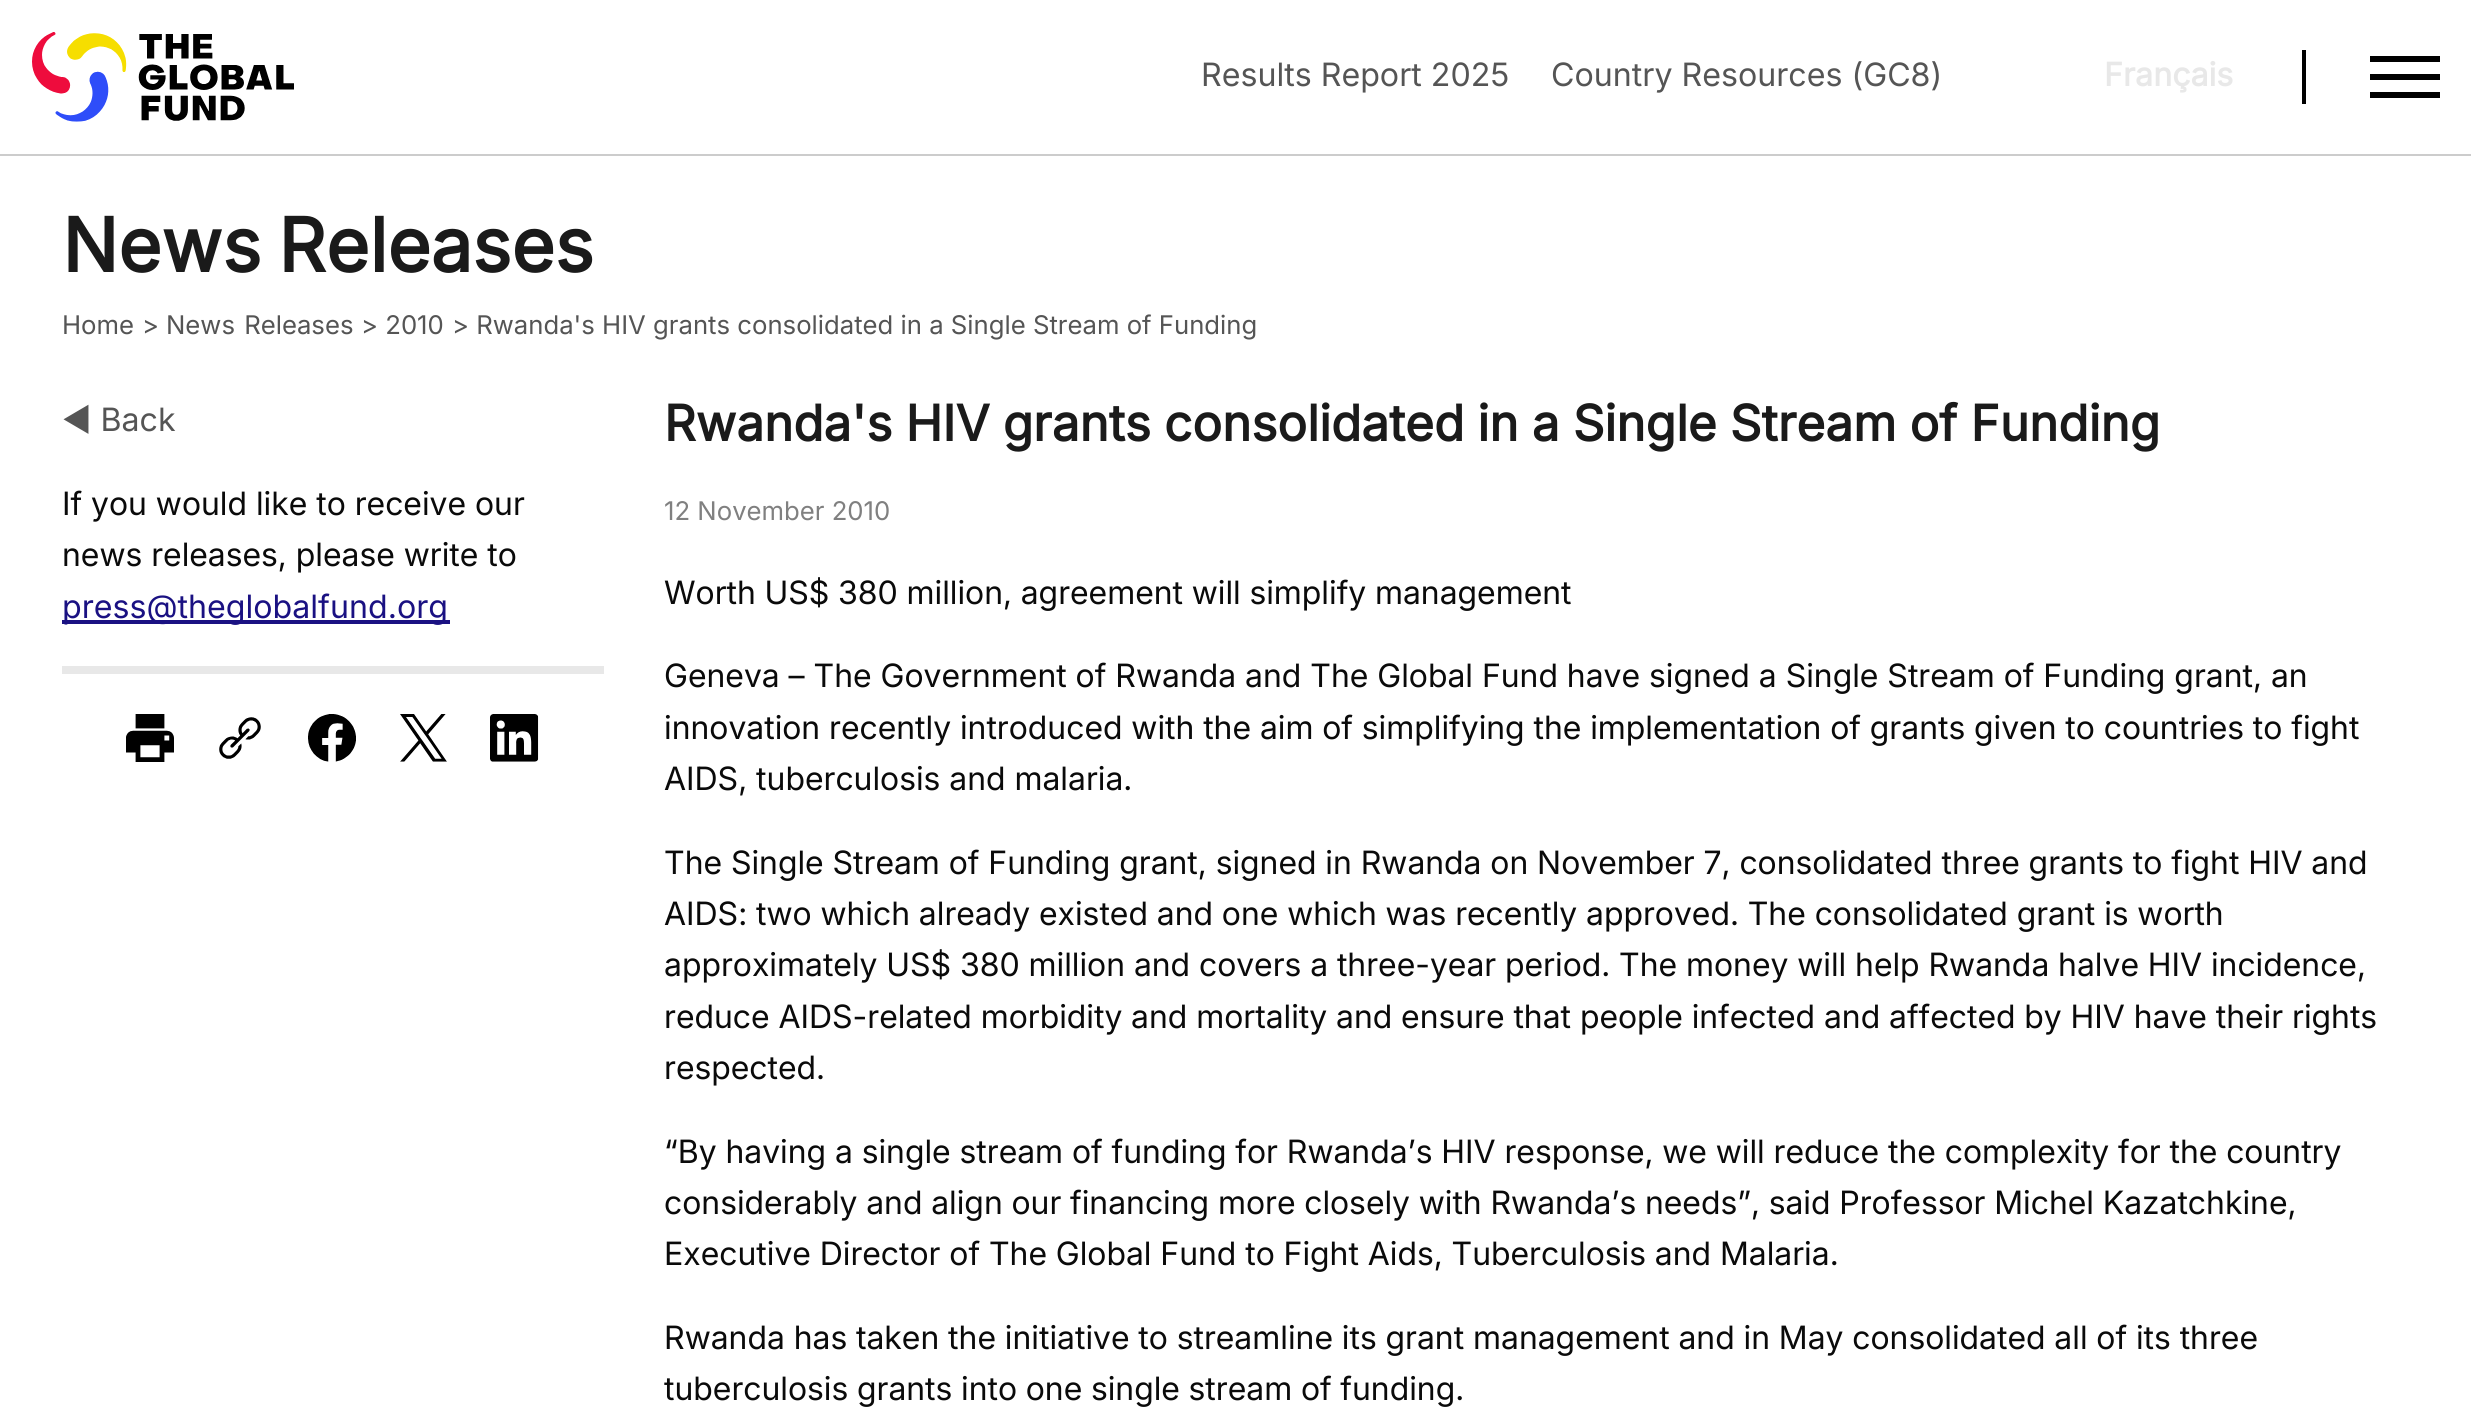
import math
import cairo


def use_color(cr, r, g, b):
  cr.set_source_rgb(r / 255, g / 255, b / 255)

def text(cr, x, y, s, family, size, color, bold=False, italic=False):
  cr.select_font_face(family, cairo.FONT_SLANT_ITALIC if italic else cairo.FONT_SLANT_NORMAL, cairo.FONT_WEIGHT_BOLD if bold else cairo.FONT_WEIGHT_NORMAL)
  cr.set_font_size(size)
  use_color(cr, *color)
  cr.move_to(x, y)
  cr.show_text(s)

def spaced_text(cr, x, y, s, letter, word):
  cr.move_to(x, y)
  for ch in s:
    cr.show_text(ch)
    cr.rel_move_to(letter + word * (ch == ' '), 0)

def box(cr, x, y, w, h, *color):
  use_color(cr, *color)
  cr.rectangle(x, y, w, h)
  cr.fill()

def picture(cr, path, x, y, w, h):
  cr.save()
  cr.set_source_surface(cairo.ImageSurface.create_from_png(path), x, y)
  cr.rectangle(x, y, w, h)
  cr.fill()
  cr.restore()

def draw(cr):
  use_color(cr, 255, 255, 255)
  cr.paint()
  box(cr, 0, 154, 2471, 2, 204, 204, 204)
  picture(cr, "img_01.png", 32, 32, 262, 90)
  box(cr, 2302, 50, 4, 54, 0, 0, 0)
  box(cr, 2370, 56, 70, 6, 0, 0, 0)
  box(cr, 2370, 74, 70, 6, 0, 0, 0)
  box(cr, 2370, 92, 70, 6, 0, 0, 0)
  box(cr, 62, 620, 388, 4, 26, 17, 130)
  box(cr, 62, 666, 542, 8, 232, 232, 232)
  picture(cr, "img_02.png", 126, 714, 48, 48)
  picture(cr, "img_03.png", 219, 717, 42, 42)
  picture(cr, "img_04.png", 308, 714, 48, 48)
  picture(cr, "img_05.png", 400, 714, 47, 48)
  picture(cr, "img_06.png", 490, 714, 49, 48)
  text(cr, 1201, 86, "Results Report 2025", "Inter", 32.15, (85, 85, 85))
  text(cr, 1551, 86, "Country Resources (GC8)", "Inter", 32.15, (85, 85, 85))
  text(cr, 2104, 86, "Français", "Inter", 32.15, (232, 232, 232), bold=True)
  cr.set_font_size(74.25)
  use_color(cr, 26, 26, 26)
  spaced_text(cr, 62, 272, "News Releases", 0, -4)
  text(cr, 62, 334, "Home", "Inter", 25.7, (85, 85, 85))
  text(cr, 142, 334, ">", "Inter", 25.7, (85, 85, 85))
  spaced_text(cr, 166, 334, "News Releases", 0, 2)
  text(cr, 361, 334, "> 2010", "Inter", 25.7, (85, 85, 85))
  text(cr, 452, 334, "> Rwanda's HIV grants consolidated in a Single Stream of Funding", "Inter", 25.7, (85, 85, 85))
  text(cr, 62, 431, "◀ Back", "Inter", 32.15, (85, 85, 85))
  text(cr, 62, 515, "If you would like to receive our", "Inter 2", 32.15, (10, 10, 10))
  text(cr, 62, 566, "news releases, please write to", "Inter 2", 32.15, (10, 10, 10))
  text(cr, 62, 618, "press@theglobalfund.org", "Inter", 32.15, (26, 17, 130))
  cr.select_font_face("Inter", cairo.FONT_SLANT_NORMAL, cairo.FONT_WEIGHT_BOLD)
  cr.set_font_size(49.45)
  use_color(cr, 26, 26, 26)
  spaced_text(cr, 664, 441, "Rwanda's HIV grants consolidated in a Single Stream of Funding", 0, -0.75)
  text(cr, 664, 520, "12 November 2010", "Inter", 25.7, (128, 128, 128))
  cr.select_font_face("Inter 2")
  cr.set_font_size(32.15)
  use_color(cr, 10, 10, 10)
  spaced_text(cr, 664, 604, "Worth US$ 380 million, agreement will simplify management", 0, -0.25)
  text(cr, 664, 687, "Geneva – The Government of Rwanda and The Global Fund have signed a Single Stream of Funding grant, an", "Inter 2", 32.15, (10, 10, 10))
  spaced_text(cr, 664, 739, "innovation recently introduced with the aim of simplifying the implementation of grants given to countries to fight", 0, -0.1)
  text(cr, 664, 790, "AIDS, tuberculosis and malaria.", "Inter 2", 32.15, (10, 10, 10))
  spaced_text(cr, 664, 874, "The Single Stream of Funding grant, signed in Rwanda on November 7, consolidated three grants to fight HIV and", 0, -0.1)
  spaced_text(cr, 664, 925, "AIDS: two which already existed and one which was recently approved. The consolidated grant is worth", 0, -0.1)
  spaced_text(cr, 664, 976, "approximately US$ 380 million and covers a three-year period. The money will help Rwanda halve HIV incidence,", 0, -0.1)
  spaced_text(cr, 664, 1028, "reduce AIDS-related morbidity and mortality and ensure that people infected and affected by HIV have their rights", 0, -0.1)
  text(cr, 664, 1079, "respected.", "Inter 2", 32.15, (10, 10, 10))
  spaced_text(cr, 664, 1163, "“By having a single stream of funding for Rwanda’s HIV response, we will reduce the complexity for the country", 0, -0.1)
  spaced_text(cr, 664, 1214, "considerably and align our financing more closely with Rwanda’s needs”, said Professor Michel Kazatchkine,", 0, -0.2)
  spaced_text(cr, 664, 1265, "Executive Director of The Global Fund to Fight Aids, Tuberculosis and Malaria.", 0, -0.1)
  spaced_text(cr, 664, 1349, "Rwanda has taken the initiative to streamline its grant management and in May consolidated all of its three", 0, -0.1)
  spaced_text(cr, 664, 1400, "tuberculosis grants into one single stream of funding.", 0, -0.25)


surface = cairo.ImageSurface(cairo.FORMAT_RGB24, 2471, 1410)
cr = cairo.Context(surface)
options = cairo.FontOptions()
options.set_hint_metrics(cairo.HINT_METRICS_OFF)
options.set_hint_style(cairo.HINT_STYLE_NONE)
cr.set_font_options(options)
cr.set_miter_limit(4)
draw(cr)
surface.write_to_png("out.png")
